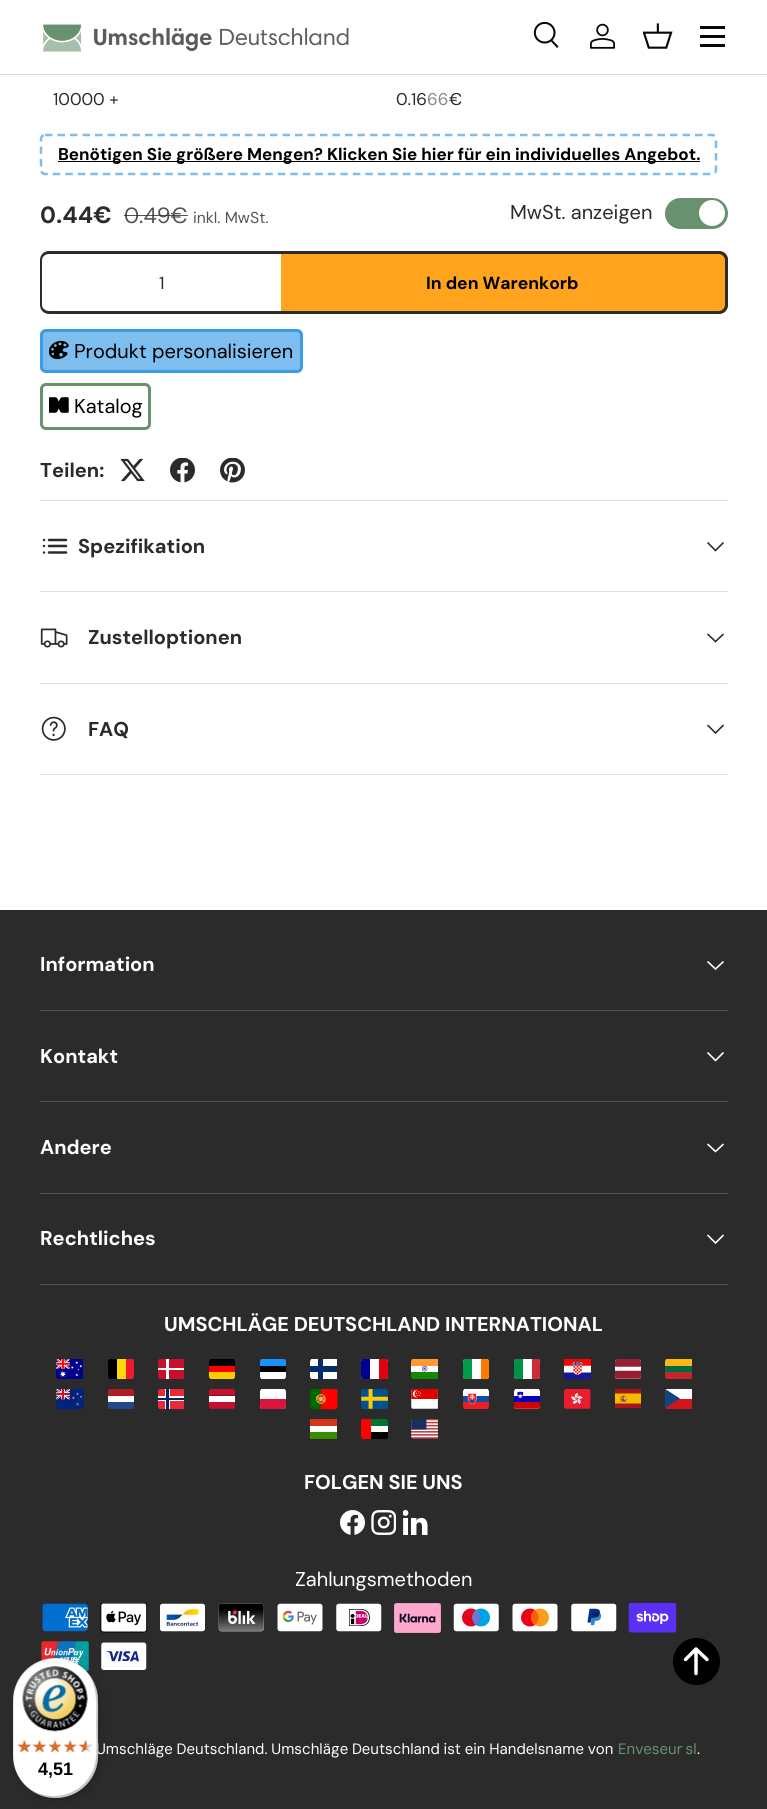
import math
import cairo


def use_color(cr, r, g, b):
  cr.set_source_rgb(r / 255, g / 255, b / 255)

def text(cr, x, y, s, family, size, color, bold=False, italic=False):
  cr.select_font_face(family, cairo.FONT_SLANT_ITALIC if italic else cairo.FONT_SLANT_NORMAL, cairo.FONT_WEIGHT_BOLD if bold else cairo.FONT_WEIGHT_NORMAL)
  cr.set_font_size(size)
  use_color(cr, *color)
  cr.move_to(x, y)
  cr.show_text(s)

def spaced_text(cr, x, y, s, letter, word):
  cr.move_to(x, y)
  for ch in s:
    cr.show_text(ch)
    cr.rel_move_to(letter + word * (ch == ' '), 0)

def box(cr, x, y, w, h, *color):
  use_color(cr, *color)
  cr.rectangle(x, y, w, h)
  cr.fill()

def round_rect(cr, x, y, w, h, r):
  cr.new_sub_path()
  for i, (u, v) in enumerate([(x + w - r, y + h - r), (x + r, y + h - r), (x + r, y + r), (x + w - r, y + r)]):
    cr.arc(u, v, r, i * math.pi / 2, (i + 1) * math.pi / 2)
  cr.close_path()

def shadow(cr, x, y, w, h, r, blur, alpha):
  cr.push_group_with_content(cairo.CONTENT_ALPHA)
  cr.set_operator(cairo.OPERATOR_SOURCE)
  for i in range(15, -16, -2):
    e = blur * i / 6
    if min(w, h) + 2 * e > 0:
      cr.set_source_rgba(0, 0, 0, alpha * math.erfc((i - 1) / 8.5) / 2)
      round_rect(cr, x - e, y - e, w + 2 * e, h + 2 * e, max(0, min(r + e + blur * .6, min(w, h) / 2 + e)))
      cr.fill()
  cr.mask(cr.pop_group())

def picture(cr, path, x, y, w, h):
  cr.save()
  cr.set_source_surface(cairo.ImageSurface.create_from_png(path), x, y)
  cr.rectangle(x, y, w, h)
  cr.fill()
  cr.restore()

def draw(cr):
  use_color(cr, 255, 255, 255)
  cr.paint()
  use_color(cr, 218, 218, 218)
  cr.new_path()
  cr.move_to(0, 74)
  cr.line_to(0, 75)
  cr.line_to(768, 75)
  cr.line_to(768, 0)
  cr.line_to(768, 74)
  cr.close_path()
  cr.fill()
  picture(cr, "img_01.png", 43, 24, 306, 28)
  picture(cr, "img_02.png", 533, 21, 26, 27)
  picture(cr, "img_03.png", 590, 23, 25, 26)
  picture(cr, "img_04.png", 643, 23, 30, 26)
  box(cr, 700, 26, 25, 3, 7, 7, 7)
  box(cr, 700, 44, 25, 3, 7, 7, 7)
  box(cr, 700, 35, 25, 3, 7, 7, 7)
  cr.new_path()
  cr.move_to(45, 135)
  cr.line_to(712.5, 135)
  cr.curve_to(714.5, 135, 716, 136.5, 716, 139)
  cr.line_to(716, 170)
  cr.curve_to(716, 172, 714.5, 174, 712.5, 174)
  cr.line_to(45, 174)
  cr.curve_to(43, 174, 41, 172, 41, 170)
  cr.line_to(41, 139)
  cr.curve_to(41, 136.5, 43, 135, 45, 135)
  cr.close_path()
  use_color(cr, 125, 190, 239)
  cr.set_line_width(2.5)
  cr.set_dash([7.5, 5])
  cr.stroke()
  box(cr, 58, 161, 642, 1, 0, 0, 0)
  use_color(cr, 104, 145, 112)
  round_rect(cr, 665, 198, 63, 31, 15.5)
  cr.fill()
  use_color(cr, 255, 255, 255)
  cr.arc(712, 213, 13, 0, 2 * math.pi)
  cr.fill()
  use_color(cr, 42, 43, 42)
  cr.set_fill_rule(cairo.FILL_RULE_EVEN_ODD)
  cr.new_path()
  cr.move_to(49, 251)
  cr.line_to(281, 251)
  cr.line_to(281, 314)
  cr.line_to(49, 314)
  cr.curve_to(44, 314, 40, 310, 40, 305)
  cr.line_to(40, 260)
  cr.curve_to(40, 255, 44, 251, 49, 251)
  cr.close_path()
  cr.move_to(49, 254)
  cr.line_to(281, 254)
  cr.line_to(281, 311)
  cr.line_to(49, 311)
  cr.curve_to(45, 311, 42, 308, 42, 305)
  cr.line_to(42, 260)
  cr.curve_to(42, 257, 45, 254, 49, 254)
  cr.close_path()
  cr.fill()
  use_color(cr, 255, 164, 28)
  cr.new_path()
  cr.move_to(281, 251)
  cr.line_to(719, 251)
  cr.curve_to(724, 251, 728, 255, 728, 260)
  cr.line_to(728, 305)
  cr.curve_to(728, 310, 724, 314, 719, 314)
  cr.line_to(281, 314)
  cr.close_path()
  cr.fill()
  use_color(cr, 42, 43, 42)
  cr.new_path()
  cr.move_to(281, 251)
  cr.line_to(719, 251)
  cr.curve_to(724, 251, 728, 255, 728, 260)
  cr.line_to(728, 305)
  cr.curve_to(728, 310, 724, 314, 719, 314)
  cr.line_to(281, 314)
  cr.close_path()
  cr.move_to(281, 254)
  cr.line_to(719, 254)
  cr.curve_to(722, 254, 725, 257, 725, 260)
  cr.line_to(725, 305)
  cr.curve_to(725, 308, 722, 311, 719, 311)
  cr.line_to(281, 311)
  cr.close_path()
  cr.fill()
  cr.save()
  cr.set_fill_rule(cairo.FILL_RULE_WINDING)
  round_rect(cr, 40, 329, 263, 44, 6)
  cr.clip()
  gradient = cairo.LinearGradient(-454, 259, 282, 442)
  gradient.add_color_stop_rgba(0.6, 0.898, 0.949, 0.988, 1)
  gradient.add_color_stop_rgba(0.6, 0.49, 0.745, 0.937, 1)
  gradient.add_color_stop_rgba(1, 0.49, 0.745, 0.937, 1)
  cr.set_source(gradient)
  cr.rectangle(40, 331, 260, 39)
  cr.fill()
  cr.restore()
  round_rect(cr, 41.5, 330.5, 260, 41, 4.5)
  use_color(cr, 57, 156, 231)
  cr.set_line_width(3)
  cr.set_dash([])
  cr.stroke()
  picture(cr, "img_05.png", 49, 340, 20, 20)
  round_rect(cr, 41.5, 384.5, 108, 44, 4.5)
  use_color(cr, 104, 145, 112)
  cr.stroke()
  picture(cr, "img_06.png", 49, 397, 20, 16)
  picture(cr, "img_07.png", 120, 458, 25, 24)
  picture(cr, "img_08.png", 170, 458, 25, 25)
  picture(cr, "img_09.png", 220, 458, 25, 25)
  box(cr, 40, 500, 688, 1, 223, 223, 223)
  box(cr, 40, 591, 688, 1, 223, 223, 223)
  cr.new_path()
  cr.move_to(49, 540)
  cr.line_to(66, 540)
  cr.move_to(49, 546)
  cr.line_to(66, 546)
  cr.move_to(49, 552.5)
  cr.line_to(66, 552.5)
  cr.move_to(44, 540)
  cr.line_to(44, 540)
  cr.move_to(44, 546)
  cr.line_to(44, 546)
  cr.move_to(44, 552.5)
  cr.line_to(44, 552.5)
  use_color(cr, 42, 43, 42)
  cr.set_line_width(2.5)
  cr.set_line_cap(cairo.LINE_CAP_ROUND)
  cr.set_line_join(cairo.LINE_JOIN_ROUND)
  cr.stroke()
  cr.new_path()
  cr.move_to(723.5, 542.5)
  cr.line_to(715.5, 550.5)
  cr.line_to(707.5, 542.5)
  cr.set_line_width(1.6)
  cr.set_line_cap(cairo.LINE_CAP_BUTT)
  cr.set_line_join(cairo.LINE_JOIN_MITER)
  cr.stroke()
  box(cr, 40, 683, 688, 1, 223, 223, 223)
  picture(cr, "img_10.png", 40, 628, 28, 20)
  cr.new_path()
  cr.move_to(723.5, 634)
  cr.line_to(715.5, 641.5)
  cr.line_to(707.5, 634)
  use_color(cr, 42, 43, 42)
  cr.stroke()
  box(cr, 40, 774, 688, 1, 223, 223, 223)
  picture(cr, "img_11.png", 41, 716, 25, 25)
  cr.new_path()
  cr.move_to(723.5, 725)
  cr.line_to(715.5, 733)
  cr.line_to(707.5, 725)
  use_color(cr, 42, 43, 42)
  cr.stroke()
  box(cr, 0, 910, 767, 899, 42, 43, 42)
  box(cr, 40, 1010, 688, 1, 85, 85, 85)
  cr.new_path()
  cr.move_to(723.5, 961.5)
  cr.line_to(715.5, 969)
  cr.line_to(707.5, 961.5)
  use_color(cr, 255, 255, 255)
  cr.stroke()
  box(cr, 40, 1101, 688, 1, 85, 85, 85)
  cr.new_path()
  cr.move_to(723.5, 1052.5)
  cr.line_to(715.5, 1060.5)
  cr.line_to(707.5, 1052.5)
  use_color(cr, 255, 255, 255)
  cr.stroke()
  box(cr, 40, 1193, 688, 1, 85, 85, 85)
  cr.new_path()
  cr.move_to(723.5, 1144)
  cr.line_to(715.5, 1151.5)
  cr.line_to(707.5, 1144)
  use_color(cr, 255, 255, 255)
  cr.stroke()
  box(cr, 40, 1284, 688, 1, 85, 85, 85)
  cr.new_path()
  cr.move_to(723.5, 1235)
  cr.line_to(715.5, 1243)
  cr.line_to(707.5, 1235)
  use_color(cr, 255, 255, 255)
  cr.stroke()
  picture(cr, "img_12.png", 56, 1359, 27, 20)
  cr.save()
  cr.set_fill_rule(cairo.FILL_RULE_WINDING)
  round_rect(cr, 108, 1358, 26, 22, 4)
  cr.clip()
  box(cr, 108, 1359, 9, 20, 0, 0, 1)
  cr.restore()
  box(cr, 117, 1359, 9, 20, 255, 217, 12)
  cr.save()
  cr.set_fill_rule(cairo.FILL_RULE_WINDING)
  round_rect(cr, 108, 1358, 26, 22, 4)
  cr.clip()
  box(cr, 126, 1359, 8, 20, 243, 24, 48)
  cr.restore()
  cr.save()
  cr.set_fill_rule(cairo.FILL_RULE_WINDING)
  round_rect(cr, 158, 1358, 27, 22, 4)
  cr.clip()
  box(cr, 158, 1359, 26, 20, 200, 16, 46)
  cr.restore()
  box(cr, 166, 1359, 3, 20, 255, 255, 255)
  box(cr, 158, 1368, 26, 2, 255, 255, 255)
  cr.save()
  cr.set_fill_rule(cairo.FILL_RULE_WINDING)
  round_rect(cr, 209, 1358, 26, 22, 4)
  cr.clip()
  box(cr, 209, 1372, 26, 7, 255, 204, 0)
  box(cr, 209, 1359, 26, 7, 0, 0, 1)
  cr.restore()
  box(cr, 209, 1366, 26, 6, 255, 0, 0)
  cr.save()
  cr.set_fill_rule(cairo.FILL_RULE_WINDING)
  round_rect(cr, 260, 1358, 26, 22, 4)
  cr.clip()
  box(cr, 260, 1359, 26, 7, 23, 145, 255)
  cr.restore()
  box(cr, 260, 1366, 26, 6, 0, 0, 1)
  cr.save()
  cr.set_fill_rule(cairo.FILL_RULE_WINDING)
  round_rect(cr, 260, 1358, 26, 22, 4)
  cr.clip()
  box(cr, 260, 1372, 26, 7, 255, 255, 255)
  cr.restore()
  cr.save()
  cr.set_fill_rule(cairo.FILL_RULE_WINDING)
  round_rect(cr, 310, 1358, 28, 22, 4)
  cr.clip()
  box(cr, 310, 1359, 27, 20, 255, 255, 255)
  cr.restore()
  box(cr, 310, 1366, 27, 6, 0, 47, 108)
  box(cr, 318, 1359, 5, 20, 0, 47, 108)
  cr.save()
  cr.set_fill_rule(cairo.FILL_RULE_WINDING)
  round_rect(cr, 361, 1358, 27, 22, 4)
  cr.clip()
  box(cr, 361, 1359, 27, 20, 255, 255, 255)
  box(cr, 361, 1359, 9, 20, 0, 0, 145)
  box(cr, 379, 1359, 9, 20, 225, 0, 15)
  cr.restore()
  picture(cr, "img_13.png", 411, 1359, 27, 20)
  cr.save()
  cr.set_fill_rule(cairo.FILL_RULE_WINDING)
  round_rect(cr, 463, 1358, 26, 22, 4)
  cr.clip()
  box(cr, 463, 1359, 26, 20, 255, 255, 255)
  box(cr, 463, 1359, 9, 20, 0, 154, 73)
  box(cr, 481, 1359, 8, 20, 255, 121, 0)
  cr.restore()
  cr.save()
  cr.set_fill_rule(cairo.FILL_RULE_WINDING)
  round_rect(cr, 514, 1358, 26, 22, 4)
  cr.clip()
  box(cr, 514, 1359, 26, 20, 255, 255, 255)
  box(cr, 514, 1359, 9, 20, 0, 146, 70)
  box(cr, 532, 1359, 8, 20, 206, 43, 55)
  cr.restore()
  picture(cr, "img_14.png", 564, 1359, 27, 21)
  picture(cr, "img_15.png", 615, 1359, 26, 20)
  cr.save()
  cr.set_fill_rule(cairo.FILL_RULE_WINDING)
  round_rect(cr, 665, 1358, 28, 22, 4)
  cr.clip()
  box(cr, 665, 1359, 27, 20, 0, 106, 68)
  box(cr, 665, 1372, 27, 7, 193, 39, 45)
  box(cr, 665, 1359, 27, 7, 253, 185, 19)
  cr.restore()
  picture(cr, "img_16.png", 56, 1389, 28, 21)
  cr.save()
  cr.set_fill_rule(cairo.FILL_RULE_WINDING)
  round_rect(cr, 108, 1388, 26, 22, 4)
  cr.clip()
  box(cr, 108, 1389, 26, 7, 174, 28, 40)
  cr.restore()
  box(cr, 108, 1396, 26, 6, 255, 255, 255)
  cr.save()
  cr.set_fill_rule(cairo.FILL_RULE_WINDING)
  round_rect(cr, 108, 1388, 26, 22, 4)
  cr.clip()
  box(cr, 108, 1402, 26, 7, 33, 70, 139)
  cr.restore()
  cr.save()
  cr.set_fill_rule(cairo.FILL_RULE_WINDING)
  round_rect(cr, 158, 1388, 27, 22, 4)
  cr.clip()
  box(cr, 158, 1389, 26, 20, 237, 41, 57)
  cr.restore()
  box(cr, 165, 1389, 5, 20, 255, 255, 255)
  box(cr, 158, 1396, 26, 5, 255, 255, 255)
  box(cr, 166, 1389, 3, 20, 0, 38, 100)
  box(cr, 158, 1398, 26, 2, 0, 38, 100)
  picture(cr, "img_17.png", 209, 1389, 26, 20)
  cr.save()
  cr.set_fill_rule(cairo.FILL_RULE_WINDING)
  round_rect(cr, 260, 1388, 26, 22, 4)
  cr.clip()
  box(cr, 260, 1389, 26, 20, 255, 255, 255)
  box(cr, 260, 1399, 26, 10, 220, 20, 60)
  cr.restore()
  picture(cr, "img_18.png", 310, 1389, 28, 21)
  picture(cr, "img_19.png", 361, 1389, 27, 20)
  picture(cr, "img_20.png", 411, 1389, 27, 20)
  picture(cr, "img_21.png", 463, 1389, 26, 20)
  picture(cr, "img_22.png", 514, 1389, 26, 20)
  picture(cr, "img_23.png", 564, 1389, 27, 20)
  picture(cr, "img_24.png", 615, 1389, 26, 20)
  cr.save()
  cr.set_fill_rule(cairo.FILL_RULE_WINDING)
  round_rect(cr, 665, 1388, 28, 22, 4)
  cr.clip()
  box(cr, 665, 1389, 27, 10, 255, 255, 255)
  box(cr, 665, 1399, 27, 10, 215, 20, 26)
  cr.restore()
  cr.save()
  cr.set_fill_rule(cairo.FILL_RULE_WINDING)
  cr.rectangle(665, 1389, 28, 20)
  cr.clip()
  use_color(cr, 17, 69, 126)
  cr.new_path()
  cr.move_to(680, 1398.5)
  cr.line_to(666, 1389.5)
  cr.curve_to(664, 1391.5, 665, 1396.5, 665, 1399)
  cr.curve_to(665, 1401.5, 664.5, 1406, 665.5, 1408)
  cr.close_path()
  cr.fill()
  cr.restore()
  cr.save()
  cr.set_fill_rule(cairo.FILL_RULE_WINDING)
  round_rect(cr, 310, 1418, 28, 22, 4)
  cr.clip()
  box(cr, 310, 1419, 27, 20, 255, 255, 255)
  box(cr, 310, 1432, 27, 7, 56, 141, 0)
  box(cr, 310, 1419, 27, 7, 212, 53, 22)
  cr.restore()
  cr.save()
  cr.set_fill_rule(cairo.FILL_RULE_WINDING)
  round_rect(cr, 361, 1418, 27, 22, 4)
  cr.clip()
  box(cr, 361, 1419, 27, 7, 0, 115, 47)
  cr.restore()
  box(cr, 371, 1426, 17, 6, 255, 255, 255)
  cr.save()
  cr.set_fill_rule(cairo.FILL_RULE_WINDING)
  round_rect(cr, 361, 1418, 27, 22, 4)
  cr.clip()
  box(cr, 361, 1432, 27, 7, 0, 0, 1)
  box(cr, 361, 1419, 10, 20, 255, 0, 0)
  cr.restore()
  picture(cr, "img_25.png", 411, 1419, 27, 20)
  picture(cr, "img_26.png", 340, 1510, 25, 25)
  picture(cr, "img_27.png", 371, 1510, 25, 25)
  picture(cr, "img_28.png", 403, 1510, 25, 25)
  picture(cr, "img_29.png", 42, 1603, 46, 29)
  picture(cr, "img_30.png", 100, 1603, 48, 30)
  picture(cr, "img_31.png", 160, 1603, 45, 29)
  picture(cr, "img_32.png", 218, 1603, 46, 29)
  picture(cr, "img_33.png", 277, 1603, 46, 29)
  picture(cr, "img_34.png", 336, 1603, 46, 29)
  picture(cr, "img_35.png", 394, 1603, 47, 30)
  picture(cr, "img_36.png", 453, 1603, 46, 29)
  picture(cr, "img_37.png", 512, 1603, 46, 29)
  picture(cr, "img_38.png", 571, 1603, 46, 29)
  picture(cr, "img_39.png", 628, 1603, 49, 30)
  picture(cr, "img_40.png", 41, 1641, 48, 30)
  picture(cr, "img_41.png", 101, 1642, 46, 28)
  use_color(cr, 0, 0, 0)
  cr.arc(696.5, 1661.5, 22, 0, 2 * math.pi)
  cr.fill_preserve()
  cr.set_line_width(3)
  cr.stroke()
  cr.new_path()
  cr.move_to(696, 1649)
  cr.line_to(696, 1673.5)
  cr.move_to(696, 1649)
  cr.line_to(685.5, 1659.5)
  cr.move_to(696, 1649)
  cr.line_to(707, 1659.5)
  use_color(cr, 255, 255, 255)
  cr.set_line_width(3.5)
  cr.set_line_cap(cairo.LINE_CAP_ROUND)
  cr.set_line_join(cairo.LINE_JOIN_ROUND)
  cr.stroke()
  use_color(cr, 0, 0, 0)
  shadow(cr, 16, 1661, 85, 140, 42.5, 5, 0.15)
  shadow(cr, 14, 1659, 85, 140, 42.5, 1, 0.15)
  use_color(cr, 255, 255, 255)
  round_rect(cr, 13, 1658, 85, 140, 42.5)
  cr.fill()
  cr.set_source_rgba(0, 0, 0, 0.1)
  cr.set_fill_rule(cairo.FILL_RULE_WINDING)
  cr.new_path()
  cr.move_to(56, 1659)
  cr.curve_to(68, 1659, 78, 1663, 86, 1671)
  cr.curve_to(65, 1649, 28, 1656, 16, 1684)
  cr.curve_to(11, 1696, 13, 1714, 13, 1728)
  cr.curve_to(13, 1749, 10, 1770, 26, 1786)
  cr.curve_to(18, 1778, 14, 1768, 14, 1756)
  cr.line_to(14, 1701)
  cr.curve_to(14, 1678, 33, 1659, 56, 1659)
  cr.close_path()
  cr.fill()
  text(cr, 53, 105, "10000 +", "DM Sans", 17, (42, 43, 42))
  text(cr, 396, 105, "0.16", "DM Sans", 17, (42, 43, 42))
  text(cr, 427, 105, "66", "DM Sans", 17, (136, 136, 136))
  text(cr, 449, 105, "€", "DM Sans", 17, (42, 43, 42))
  text(cr, 58, 160, "Benötigen Sie größere Mengen? Klicken Sie hier für ein individuelles Angebot.", "DM Sans", 17, (0, 0, 0), bold=True)
  text(cr, 40, 223, "0.44€", "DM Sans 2", 23.5, (42, 43, 42), bold=True)
  text(cr, 124, 223, "0.49€", "DM Sans 2", 22, (85, 85, 85))
  cr.set_source_rgba(0.165, 0.169, 0.165, 0.8)
  cr.rectangle(124, 215, 64, 1)
  cr.fill()
  text(cr, 193, 223, "inkl. MwSt.", "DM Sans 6", 15.75, (85, 85, 85))
  text(cr, 510, 219, "MwSt. anzeigen", "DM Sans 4", 20, (42, 43, 42))
  text(cr, 159, 289, "1", "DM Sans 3", 17.5, (42, 43, 42))
  text(cr, 426, 289, "In den Warenkorb", "DM Sans 4", 17.5, (0, 0, 0), bold=True)
  text(cr, 74, 358, "Produkt personalisieren", "DM Sans 4", 20, (0, 0, 0))
  text(cr, 74, 413, "Katalog", "DM Sans 4", 20, (0, 0, 0))
  text(cr, 40, 477, "Teilen:", "DM Sans 3", 20, (42, 43, 42), bold=True)
  text(cr, 78, 553, "Spezifikation", "DM Sans 3", 20, (42, 43, 42), bold=True)
  text(cr, 88, 644, "Zustelloptionen", "DM Sans 3", 20, (42, 43, 42), bold=True)
  text(cr, 88, 736, "FAQ", "DM Sans 3", 20, (42, 43, 42), bold=True)
  text(cr, 40, 971, "Information", "DM Sans 3", 20, (255, 255, 255), bold=True)
  text(cr, 40, 1063, "Kontakt", "DM Sans 3", 20, (255, 255, 255), bold=True)
  text(cr, 40, 1154, "Andere", "DM Sans 3", 20, (255, 255, 255), bold=True)
  text(cr, 40, 1245, "Rechtliches", "DM Sans 3", 20, (255, 255, 255), bold=True)
  text(cr, 164, 1331, "UMSCHLÄGE DEUTSCHLAND INTERNATIONAL", "DM Sans 3", 20, (255, 255, 255), bold=True)
  text(cr, 304, 1489, "FOLGEN SIE UNS", "DM Sans 3", 20, (255, 255, 255), bold=True)
  text(cr, 295, 1586, "Zahlungsmethoden", "DM Sans 4", 20, (255, 255, 255))
  cr.select_font_face("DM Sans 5")
  cr.set_font_size(15)
  spaced_text(cr, 96, 1754, "Umschläge Deutschland. Umschläge Deutschland ist ein Handelsname von", 0, -0.25)
  use_color(cr, 104, 145, 112)
  spaced_text(cr, 618, 1754, "Enveseur sl", 0, -1)
  text(cr, 697, 1754, ".", "DM Sans 5", 15, (255, 255, 255))
  cr.set_source_rgba(0, 0, 0, 0.2)
  cr.new_path()
  cr.move_to(25, 1785)
  cr.curve_to(45, 1807, 83, 1800, 95, 1772)
  cr.curve_to(100, 1760, 98, 1742, 98, 1728)
  cr.curve_to(98, 1707, 102, 1685, 85, 1670)
  cr.curve_to(99, 1685, 96, 1707, 96, 1726)
  cr.curve_to(96, 1740, 98, 1758, 93, 1770)
  cr.curve_to(81, 1798, 46, 1804, 25, 1785)
  cr.close_path()
  cr.fill()
  cr.set_source_rgba(0.196, 0.196, 0.196, 0.2)
  cr.new_path()
  cr.move_to(25, 1786)
  cr.curve_to(46, 1806, 83, 1800, 95, 1772)
  cr.curve_to(100, 1760, 98, 1742, 98, 1728)
  cr.curve_to(98, 1707, 101, 1686, 86, 1670)
  cr.curve_to(93, 1678, 97, 1688, 97, 1699)
  cr.line_to(97, 1754)
  cr.curve_to(97, 1778, 78, 1797, 54, 1797)
  cr.curve_to(43, 1797, 33, 1793, 25, 1786)
  cr.close_path()
  cr.fill()
  cr.set_source_rgba(1, 1, 1, 0.3)
  cr.new_path()
  cr.move_to(25, 1786)
  cr.curve_to(46, 1806, 83, 1800, 95, 1772)
  cr.curve_to(100, 1760, 98, 1742, 98, 1728)
  cr.curve_to(98, 1707, 101, 1686, 86, 1670)
  cr.curve_to(93, 1678, 97, 1688, 97, 1699)
  cr.line_to(97, 1754)
  cr.curve_to(97, 1778, 78, 1797, 54, 1797)
  cr.curve_to(43, 1797, 33, 1793, 25, 1786)
  cr.close_path()
  cr.fill()
  picture(cr, "img_42.png", 22, 1666, 66, 66)
  picture(cr, "img_43.png", 17, 1740, 14, 13)
  picture(cr, "img_44.png", 34, 1740, 12, 12)
  picture(cr, "img_45.png", 49, 1740, 12, 13)
  picture(cr, "img_46.png", 64, 1740, 14, 12)
  picture(cr, "img_47.png", 79, 1740, 14, 13)
  picture(cr, "img_48.png", 17, 1740, 15, 12)
  picture(cr, "img_49.png", 32, 1740, 15, 12)
  picture(cr, "img_50.png", 48, 1740, 14, 12)
  picture(cr, "img_51.png", 63, 1740, 14, 12)
  picture(cr, "img_52.png", 78, 1740, 9, 12)
  text(cr, 38, 1775, "4,51", "Liberation Sans", 18, (0, 0, 0), bold=True)


surface = cairo.ImageSurface(cairo.FORMAT_RGB24, 767, 1809)
cr = cairo.Context(surface)
options = cairo.FontOptions()
options.set_hint_metrics(cairo.HINT_METRICS_OFF)
options.set_hint_style(cairo.HINT_STYLE_NONE)
cr.set_font_options(options)
cr.set_miter_limit(4)
draw(cr)
surface.write_to_png("out.png")
